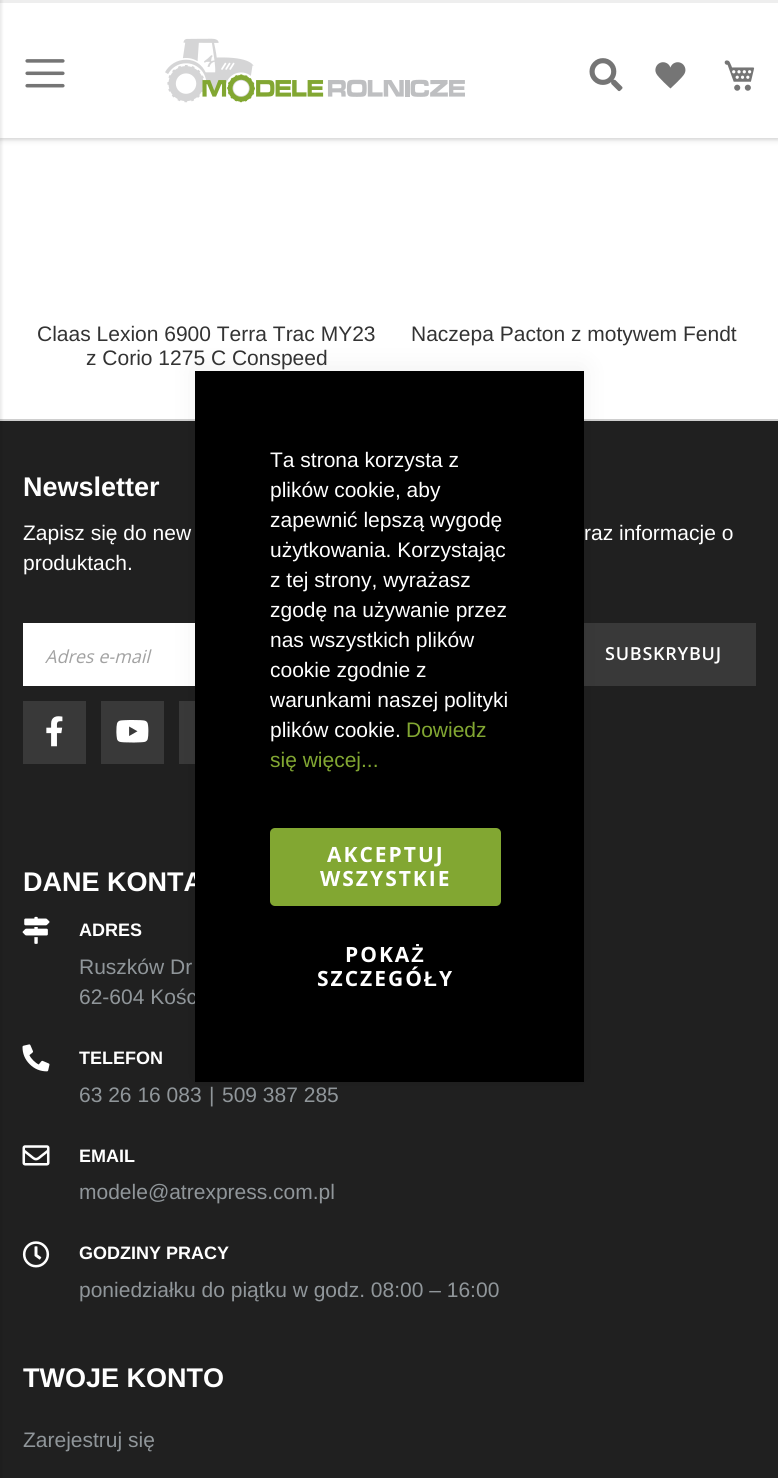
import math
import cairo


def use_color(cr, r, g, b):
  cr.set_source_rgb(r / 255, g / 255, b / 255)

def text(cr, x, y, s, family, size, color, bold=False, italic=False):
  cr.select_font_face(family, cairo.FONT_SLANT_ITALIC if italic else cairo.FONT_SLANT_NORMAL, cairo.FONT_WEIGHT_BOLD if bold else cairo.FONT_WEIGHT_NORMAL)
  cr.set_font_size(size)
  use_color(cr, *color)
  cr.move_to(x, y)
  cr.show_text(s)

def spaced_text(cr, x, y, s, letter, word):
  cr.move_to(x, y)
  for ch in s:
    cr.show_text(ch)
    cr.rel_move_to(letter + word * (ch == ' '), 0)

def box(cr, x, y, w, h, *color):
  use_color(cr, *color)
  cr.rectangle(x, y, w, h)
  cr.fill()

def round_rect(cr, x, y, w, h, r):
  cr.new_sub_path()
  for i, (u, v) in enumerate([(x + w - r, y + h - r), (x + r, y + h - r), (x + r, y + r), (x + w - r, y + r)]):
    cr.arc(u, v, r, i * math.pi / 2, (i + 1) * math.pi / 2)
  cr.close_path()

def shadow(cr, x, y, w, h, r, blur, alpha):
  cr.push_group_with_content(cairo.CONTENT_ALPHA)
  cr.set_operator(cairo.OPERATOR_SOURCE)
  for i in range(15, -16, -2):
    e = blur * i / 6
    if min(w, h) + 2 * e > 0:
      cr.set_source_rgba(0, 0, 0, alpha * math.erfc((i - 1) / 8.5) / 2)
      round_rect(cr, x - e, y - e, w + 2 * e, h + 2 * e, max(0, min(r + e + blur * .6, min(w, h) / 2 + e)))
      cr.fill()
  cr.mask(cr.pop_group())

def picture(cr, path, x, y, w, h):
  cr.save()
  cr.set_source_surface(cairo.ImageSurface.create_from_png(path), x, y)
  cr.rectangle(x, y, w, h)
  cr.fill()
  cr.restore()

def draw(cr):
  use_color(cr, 255, 255, 255)
  cr.paint()
  use_color(cr, 0, 0, 0)
  shadow(cr, 0, 3, 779, 138, 0, 3, 0.08)
  shadow(cr, -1, -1, 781, 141, 0, 1.5, 0.08)
  box(cr, 0, 3, 778, 135, 255, 255, 255)
  box(cr, 0, 0, 778, 3, 238, 238, 238)
  picture(cr, "img_01.png", 25, 59, 40, 29)
  picture(cr, "img_02.png", 165, 38, 300, 65)
  picture(cr, "img_03.png", 589, 58, 34, 34)
  picture(cr, "img_04.png", 655, 62, 31, 27)
  picture(cr, "img_05.png", 724, 60, 31, 31)
  box(cr, 0, 421, 778, 1057, 32, 32, 32)
  box(cr, 0, 419, 778, 2, 206, 206, 206)
  use_color(cr, 0, 0, 0)
  shadow(cr, -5, -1, 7, 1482, 0, 1.5, 0.08)
  box(cr, 23, 623, 172, 63, 255, 255, 255)
  box(cr, 584, 623, 172, 63, 57, 57, 57)
  box(cr, 23, 701, 63, 63, 57, 57, 57)
  picture(cr, "img_06.png", 46, 716, 17, 31)
  box(cr, 101, 701, 63, 63, 57, 57, 57)
  picture(cr, "img_07.png", 116, 720, 33, 23)
  box(cr, 179, 701, 16, 63, 57, 57, 57)
  picture(cr, "img_08.png", 22, 916, 28, 28)
  picture(cr, "img_09.png", 22, 1044, 28, 28)
  picture(cr, "img_10.png", 22, 1145, 28, 21)
  picture(cr, "img_11.png", 22, 1241, 28, 27)
  use_color(cr, 0, 0, 0)
  shadow(cr, 195, 368, 389, 711, 0, 13.5, 0.06)
  text(cr, 37, 341, "Claas Lexion 6900 Terra Trac MY23", "Liberation Sans", 21, (51, 51, 51))
  text(cr, 86, 365, "z Corio 1275 C Conspeed", "Liberation Sans", 21, (51, 51, 51))
  text(cr, 411, 341, "Naczepa Pacton z motywem Fendt", "Liberation Sans", 21, (51, 51, 51))
  text(cr, 23, 496, "Newsletter", "Liberation Sans", 27, (255, 255, 255), bold=True)
  text(cr, 23, 540, "Zapisz się do new", "Liberation Sans", 21, (255, 255, 255))
  text(cr, 584, 540, "raz informacje o", "Liberation Sans", 21, (255, 255, 255))
  text(cr, 23, 570, "produktach.", "Liberation Sans", 21, (255, 255, 255))
  text(cr, 45, 663, "Adres e-mail", "Open Sans", 18, (162, 162, 162), italic=True)
  cr.select_font_face("Open Sans SemiBold")
  use_color(cr, 255, 255, 255)
  spaced_text(cr, 605, 660, "SUBSKRYBUJ", 0.75, 0)
  text(cr, 23, 891, "DANE KONTA", "Liberation Sans", 27, (255, 255, 255), bold=True)
  text(cr, 79, 936, "ADRES", "Liberation Sans", 18, (255, 255, 255), bold=True)
  text(cr, 79, 974, "Ruszków Dr", "Liberation Sans", 21, (144, 150, 154))
  text(cr, 79, 1004, "62-604 Kośc", "Liberation Sans", 21, (144, 150, 154))
  text(cr, 79, 1064, "TELEFON", "Liberation Sans", 18, (255, 255, 255), bold=True)
  text(cr, 79, 1102, "63 26 16 083", "Liberation Sans", 21, (144, 150, 154))
  text(cr, 209, 1102, "|", "Liberation Sans", 21, (144, 150, 154))
  text(cr, 222, 1102, "509 387 285", "Liberation Sans", 21, (144, 150, 154))
  text(cr, 79, 1162, "EMAIL", "Liberation Sans", 18, (255, 255, 255), bold=True)
  text(cr, 79, 1199, "modele@atrexpress.com.pl", "Liberation Sans", 21, (144, 150, 154))
  text(cr, 79, 1259, "GODZINY PRACY", "Liberation Sans", 18, (255, 255, 255), bold=True)
  text(cr, 79, 1297, "poniedziałku do piątku w godz. 08:00 – 16:00", "Liberation Sans", 21, (144, 150, 154))
  text(cr, 23, 1387, "TWOJE KONTO", "Liberation Sans", 27, (255, 255, 255), bold=True)
  text(cr, 23, 1447, "Zarejestruj się", "Liberation Sans", 21, (144, 150, 154))
  box(cr, 195, 371, 389, 711, 0, 0, 0)
  text(cr, 270, 467, "Ta strona korzysta z", "Liberation Sans", 21, (255, 255, 255))
  text(cr, 270, 497, "plików cookie, aby", "Liberation Sans", 21, (255, 255, 255))
  text(cr, 270, 527, "zapewnić lepszą wygodę", "Liberation Sans", 21, (255, 255, 255))
  text(cr, 270, 557, "użytkowania. Korzystając", "Liberation Sans", 21, (255, 255, 255))
  text(cr, 270, 587, "z tej strony, wyrażasz", "Liberation Sans", 21, (255, 255, 255))
  text(cr, 270, 617, "zgodę na używanie przez", "Liberation Sans", 21, (255, 255, 255))
  text(cr, 270, 647, "nas wszystkich plików", "Liberation Sans", 21, (255, 255, 255))
  text(cr, 270, 677, "cookie zgodnie z", "Liberation Sans", 21, (255, 255, 255))
  text(cr, 270, 707, "warunkami naszej polityki", "Liberation Sans", 21, (255, 255, 255))
  text(cr, 270, 737, "plików cookie.", "Liberation Sans", 21, (255, 255, 255))
  text(cr, 406, 737, "Dowiedz", "Liberation Sans", 21, (130, 167, 50))
  text(cr, 270, 767, "się więcej...", "Liberation Sans", 21, (130, 167, 50))
  round_rect(cr, 270, 828, 231, 78, 5)
  cr.fill()
  cr.select_font_face("Open Sans", cairo.FONT_SLANT_NORMAL, cairo.FONT_WEIGHT_BOLD)
  use_color(cr, 255, 255, 255)
  spaced_text(cr, 327, 862, "AKCEPTUJ", 2, 0)
  spaced_text(cr, 320, 886, "WSZYSTKIE", 2, 0)
  spaced_text(cr, 345, 962, "POKA", 2, 0)
  cr.select_font_face("Liberation Sans", cairo.FONT_SLANT_NORMAL, cairo.FONT_WEIGHT_BOLD)
  spaced_text(cr, 411, 962, "Ż", 2, 0)
  cr.select_font_face("Open Sans", cairo.FONT_SLANT_NORMAL, cairo.FONT_WEIGHT_BOLD)
  spaced_text(cr, 317, 986, "SZCZEGÓ", 2, 0)
  cr.select_font_face("Liberation Sans", cairo.FONT_SLANT_NORMAL, cairo.FONT_WEIGHT_BOLD)
  spaced_text(cr, 424, 986, "Ł", 2, 0)
  cr.select_font_face("Open Sans", cairo.FONT_SLANT_NORMAL, cairo.FONT_WEIGHT_BOLD)
  spaced_text(cr, 439, 986, "Y", 2, 0)


surface = cairo.ImageSurface(cairo.FORMAT_RGB24, 778, 1478)
cr = cairo.Context(surface)
options = cairo.FontOptions()
options.set_hint_metrics(cairo.HINT_METRICS_OFF)
options.set_hint_style(cairo.HINT_STYLE_NONE)
cr.set_font_options(options)
cr.set_miter_limit(4)
draw(cr)
surface.write_to_png("out.png")
